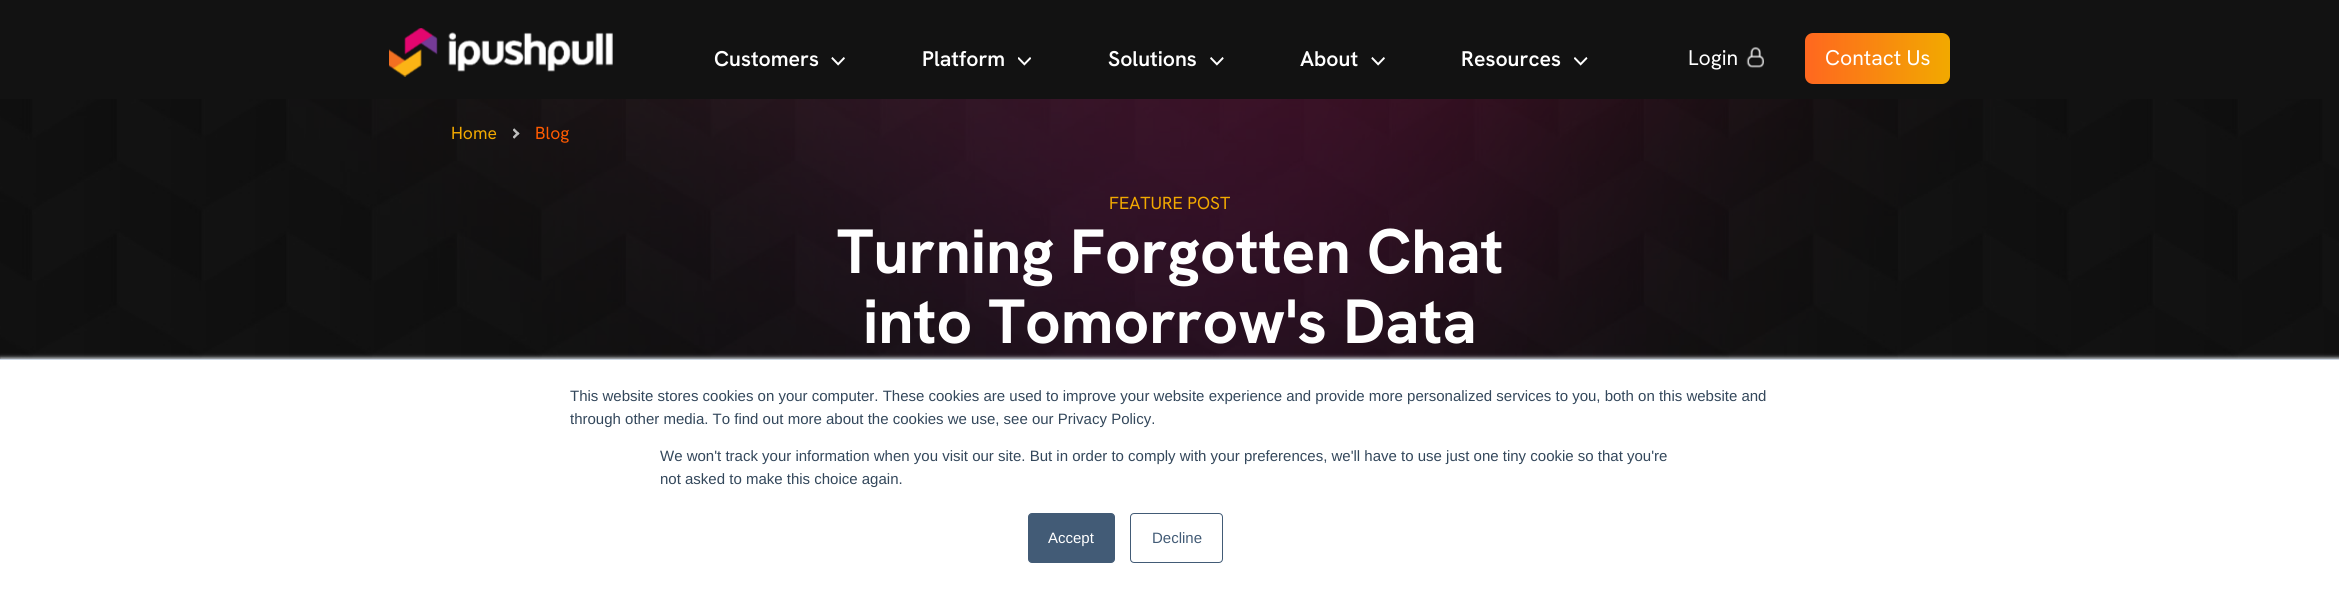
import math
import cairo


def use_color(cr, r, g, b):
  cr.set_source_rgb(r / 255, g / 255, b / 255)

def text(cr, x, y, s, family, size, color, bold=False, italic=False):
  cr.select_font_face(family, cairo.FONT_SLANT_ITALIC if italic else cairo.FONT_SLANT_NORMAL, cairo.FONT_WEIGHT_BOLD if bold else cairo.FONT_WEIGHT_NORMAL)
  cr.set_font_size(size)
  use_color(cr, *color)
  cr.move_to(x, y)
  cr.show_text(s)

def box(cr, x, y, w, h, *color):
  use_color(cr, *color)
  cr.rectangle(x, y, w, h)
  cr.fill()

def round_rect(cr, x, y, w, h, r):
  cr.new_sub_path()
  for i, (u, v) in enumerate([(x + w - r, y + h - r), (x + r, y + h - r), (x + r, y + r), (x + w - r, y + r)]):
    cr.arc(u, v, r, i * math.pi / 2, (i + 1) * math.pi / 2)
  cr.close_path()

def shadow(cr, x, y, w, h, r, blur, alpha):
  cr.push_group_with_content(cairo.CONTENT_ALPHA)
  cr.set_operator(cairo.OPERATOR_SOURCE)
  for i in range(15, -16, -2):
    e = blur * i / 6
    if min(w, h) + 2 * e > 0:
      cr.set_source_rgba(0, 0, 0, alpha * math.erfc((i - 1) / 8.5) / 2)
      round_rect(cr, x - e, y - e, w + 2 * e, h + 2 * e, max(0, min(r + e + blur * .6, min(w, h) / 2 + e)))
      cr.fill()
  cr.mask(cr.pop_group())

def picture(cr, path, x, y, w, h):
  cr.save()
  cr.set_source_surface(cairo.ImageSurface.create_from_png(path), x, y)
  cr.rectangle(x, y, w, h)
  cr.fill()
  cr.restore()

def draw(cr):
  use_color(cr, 255, 255, 255)
  cr.paint()
  box(cr, 0, 0, 2339, 99, 18, 18, 18)
  picture(cr, "img_01.png", 389, 28, 224, 49)
  picture(cr, "img_02.png", 831, 57, 14, 9)
  picture(cr, "img_03.png", 1018, 57, 13, 9)
  picture(cr, "img_04.png", 1210, 57, 14, 9)
  picture(cr, "img_02.png", 1371, 57, 14, 9)
  picture(cr, "img_05.png", 1574, 57, 14, 9)
  picture(cr, "img_06.png", 1746, 47, 18, 21)
  gradient = cairo.LinearGradient(1805, 58, 1950, 58)
  gradient.add_color_stop_rgba(0, 1, 0.404, 0.122, 1)
  gradient.add_color_stop_rgba(1, 0.949, 0.663, 0, 1)
  cr.set_source(gradient)
  round_rect(cr, 1805, 33, 145, 51, 8)
  cr.fill()
  picture(cr, "img_08.png", 0, 99, 2339, 260)
  picture(cr, "img_07.png", 513, 128, 7, 11)
  use_color(cr, 234, 240, 246)
  shadow(cr, 0, 358, 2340, 236, 0, 2, 1)
  box(cr, 0, 360, 2339, 234, 255, 255, 255)
  box(cr, 0, 359, 2339, 1, 203, 214, 226)
  use_color(cr, 66, 91, 118)
  round_rect(cr, 1028.5, 513.5, 86, 49, 3.5)
  cr.fill_preserve()
  cr.set_line_width(1)
  cr.stroke()
  round_rect(cr, 1130.5, 513.5, 92, 49, 3.5)
  cr.stroke()
  text(cr, 714, 66, "Customers", "Hanken Grotesk SemiBold", 21.25, (255, 255, 255))
  text(cr, 922, 66, "Platform", "Hanken Grotesk SemiBold", 21.25, (255, 255, 255))
  text(cr, 1108, 66, "Solutions", "Hanken Grotesk SemiBold", 21.25, (255, 255, 255))
  text(cr, 1300, 66, "About", "Hanken Grotesk SemiBold", 21.25, (255, 255, 255))
  text(cr, 1461, 66, "Resources", "Hanken Grotesk SemiBold", 21.25, (255, 255, 255))
  text(cr, 1688, 65, "Login", "Hanken Grotesk", 21.25, (255, 255, 255))
  text(cr, 1825, 65, "Contact Us", "Hanken Grotesk", 21.25, (255, 255, 255))
  text(cr, 451, 139, "Home", "Hanken Grotesk", 17.5, (242, 169, 0))
  text(cr, 535, 139, "Blog", "Hanken Grotesk", 17.5, (255, 90, 0))
  text(cr, 1109, 209, "FEATURE POST", "Hanken Grotesk", 17.5, (242, 169, 0))
  text(cr, 837, 273, "Turning Forgotten Chat", "Hanken Grotesk", 62.5, (255, 255, 255), bold=True)
  text(cr, 863, 343, "into Tomorrow's Data", "Hanken Grotesk", 62.5, (255, 255, 255), bold=True)
  text(cr, 570, 401, "This website stores cookies on your computer. These cookies are used to improve your website experience and provide more personalized services to you, both on this website and", "Liberation Sans", 15, (51, 71, 91))
  text(cr, 570, 424, "through other media. To find out more about the cookies we use, see our Privacy Policy.", "Liberation Sans", 15, (51, 71, 91))
  text(cr, 660, 461, "We won't track your information when you visit our site. But in order to comply with your preferences, we'll have to use just one tiny cookie so that you're", "Liberation Sans", 15, (51, 71, 91))
  text(cr, 660, 484, "not asked to make this choice again.", "Liberation Sans", 15, (51, 71, 91))
  text(cr, 1048, 543, "Accept", "Liberation Sans", 15, (255, 255, 255))
  text(cr, 1152, 543, "Decline", "Liberation Sans", 15, (66, 91, 118))


surface = cairo.ImageSurface(cairo.FORMAT_RGB24, 2339, 594)
cr = cairo.Context(surface)
options = cairo.FontOptions()
options.set_hint_metrics(cairo.HINT_METRICS_OFF)
options.set_hint_style(cairo.HINT_STYLE_NONE)
cr.set_font_options(options)
cr.set_miter_limit(4)
draw(cr)
surface.write_to_png("out.png")
